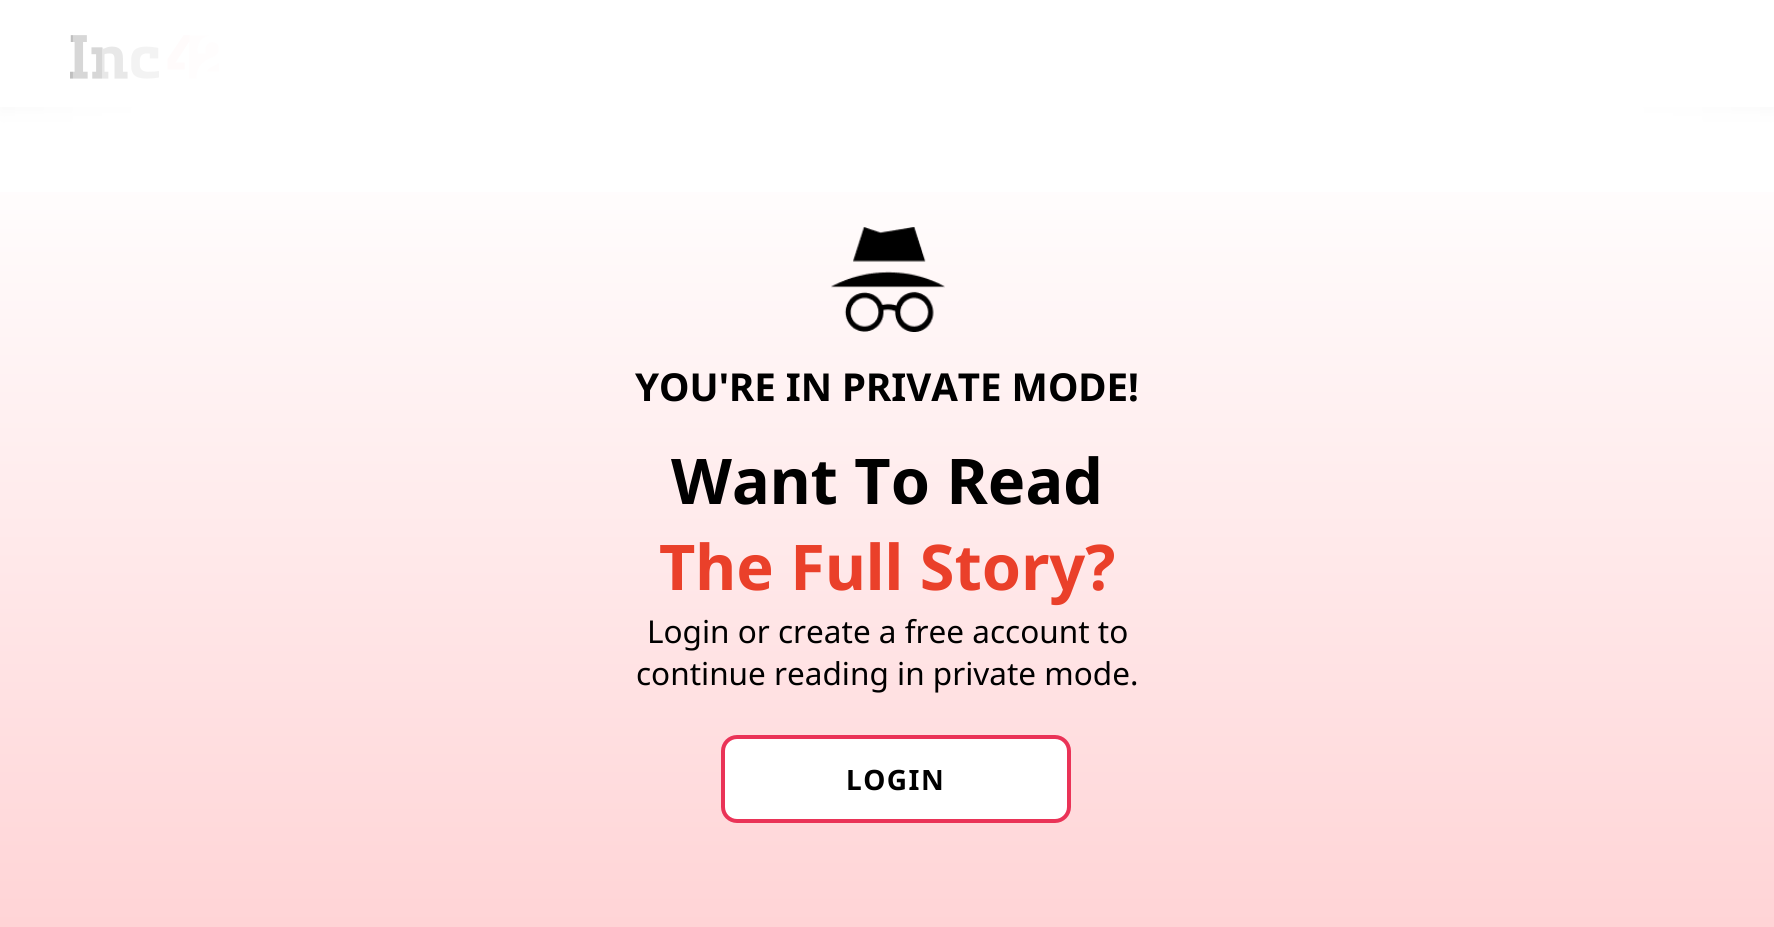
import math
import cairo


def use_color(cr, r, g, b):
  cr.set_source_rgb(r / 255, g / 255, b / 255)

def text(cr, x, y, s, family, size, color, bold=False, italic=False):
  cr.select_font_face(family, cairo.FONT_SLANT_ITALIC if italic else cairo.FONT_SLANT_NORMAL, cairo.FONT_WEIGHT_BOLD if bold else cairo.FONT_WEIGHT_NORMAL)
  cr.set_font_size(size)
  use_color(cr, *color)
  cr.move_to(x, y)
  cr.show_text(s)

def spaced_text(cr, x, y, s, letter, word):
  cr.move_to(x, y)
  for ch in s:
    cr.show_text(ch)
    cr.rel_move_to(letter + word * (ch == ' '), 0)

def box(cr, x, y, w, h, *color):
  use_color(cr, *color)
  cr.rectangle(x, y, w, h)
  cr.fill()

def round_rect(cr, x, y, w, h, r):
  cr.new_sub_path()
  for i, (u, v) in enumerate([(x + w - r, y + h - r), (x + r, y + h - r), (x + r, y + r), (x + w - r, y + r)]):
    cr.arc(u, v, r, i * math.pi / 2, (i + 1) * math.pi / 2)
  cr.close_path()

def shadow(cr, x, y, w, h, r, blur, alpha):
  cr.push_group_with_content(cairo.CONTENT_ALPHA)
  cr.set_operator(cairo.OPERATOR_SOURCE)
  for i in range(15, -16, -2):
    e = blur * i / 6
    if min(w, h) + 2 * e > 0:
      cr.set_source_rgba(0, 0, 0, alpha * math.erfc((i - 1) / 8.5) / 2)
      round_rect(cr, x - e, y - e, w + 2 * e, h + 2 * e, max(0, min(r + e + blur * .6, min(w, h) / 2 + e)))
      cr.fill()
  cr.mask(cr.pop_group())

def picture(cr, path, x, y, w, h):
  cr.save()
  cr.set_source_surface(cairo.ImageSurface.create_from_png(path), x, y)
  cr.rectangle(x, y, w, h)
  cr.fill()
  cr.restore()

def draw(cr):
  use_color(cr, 255, 255, 255)
  cr.paint()
  use_color(cr, 0, 0, 0)
  shadow(cr, 0, 5, 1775, 107, 0, 9, 0.05)
  box(cr, 0, 0, 1774, 107, 255, 255, 255)
  picture(cr, "img_01.png", 70, 35, 157, 44)
  use_color(cr, 255, 255, 255)
  shadow(cr, 0, -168, 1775, 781, 0, 87.5, 1)
  gradient = cairo.LinearGradient(887, 147, 887, 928)
  gradient.add_color_stop_rgba(0, 1, 1, 1, 1)
  gradient.add_color_stop_rgba(1, 1, 0.831, 0.839, 1)
  cr.set_source(gradient)
  cr.rectangle(0, 192, 1774, 735)
  cr.fill()
  picture(cr, "img_02.png", 831, 227, 114, 105)
  use_color(cr, 255, 255, 255)
  round_rect(cr, 723, 737, 346, 84, 14)
  cr.fill_preserve()
  use_color(cr, 234, 51, 87)
  cr.set_line_width(4)
  cr.stroke()
  text(cr, 635, 401, "YOU'RE IN PRIVATE MODE!", "Noto Sans", 38.5, (0, 0, 0), bold=True)
  text(cr, 671, 504, "Want To Read", "Noto Sans", 63, (0, 0, 0), bold=True)
  text(cr, 659, 590, "The Full Story?", "Noto Sans", 63, (234, 64, 42), bold=True)
  text(cr, 647, 643, "Login or create a free account to", "Noto Sans", 31.5, (0, 0, 0))
  text(cr, 636, 685, "continue reading in private mode.", "Noto Sans", 31.5, (0, 0, 0))
  cr.select_font_face("Noto Sans", cairo.FONT_SLANT_NORMAL, cairo.FONT_WEIGHT_BOLD)
  cr.set_font_size(28)
  spaced_text(cr, 846, 790, "LOGIN", 1.5, 0)


surface = cairo.ImageSurface(cairo.FORMAT_RGB24, 1774, 927)
cr = cairo.Context(surface)
options = cairo.FontOptions()
options.set_hint_metrics(cairo.HINT_METRICS_OFF)
options.set_hint_style(cairo.HINT_STYLE_NONE)
cr.set_font_options(options)
cr.set_miter_limit(4)
draw(cr)
surface.write_to_png("out.png")
